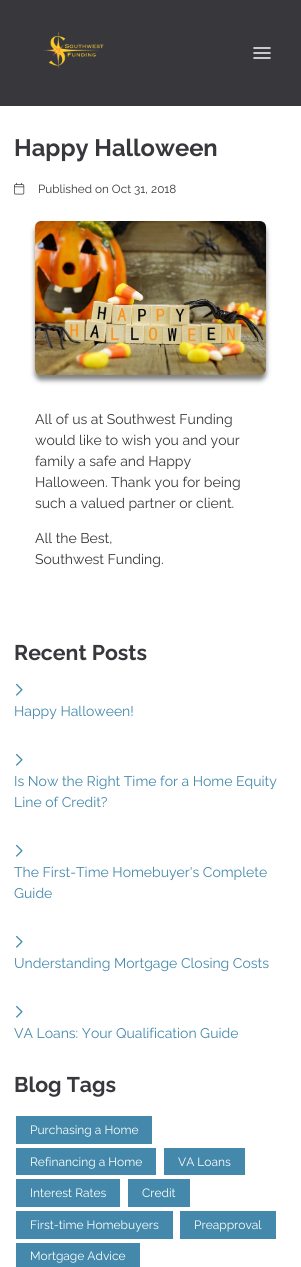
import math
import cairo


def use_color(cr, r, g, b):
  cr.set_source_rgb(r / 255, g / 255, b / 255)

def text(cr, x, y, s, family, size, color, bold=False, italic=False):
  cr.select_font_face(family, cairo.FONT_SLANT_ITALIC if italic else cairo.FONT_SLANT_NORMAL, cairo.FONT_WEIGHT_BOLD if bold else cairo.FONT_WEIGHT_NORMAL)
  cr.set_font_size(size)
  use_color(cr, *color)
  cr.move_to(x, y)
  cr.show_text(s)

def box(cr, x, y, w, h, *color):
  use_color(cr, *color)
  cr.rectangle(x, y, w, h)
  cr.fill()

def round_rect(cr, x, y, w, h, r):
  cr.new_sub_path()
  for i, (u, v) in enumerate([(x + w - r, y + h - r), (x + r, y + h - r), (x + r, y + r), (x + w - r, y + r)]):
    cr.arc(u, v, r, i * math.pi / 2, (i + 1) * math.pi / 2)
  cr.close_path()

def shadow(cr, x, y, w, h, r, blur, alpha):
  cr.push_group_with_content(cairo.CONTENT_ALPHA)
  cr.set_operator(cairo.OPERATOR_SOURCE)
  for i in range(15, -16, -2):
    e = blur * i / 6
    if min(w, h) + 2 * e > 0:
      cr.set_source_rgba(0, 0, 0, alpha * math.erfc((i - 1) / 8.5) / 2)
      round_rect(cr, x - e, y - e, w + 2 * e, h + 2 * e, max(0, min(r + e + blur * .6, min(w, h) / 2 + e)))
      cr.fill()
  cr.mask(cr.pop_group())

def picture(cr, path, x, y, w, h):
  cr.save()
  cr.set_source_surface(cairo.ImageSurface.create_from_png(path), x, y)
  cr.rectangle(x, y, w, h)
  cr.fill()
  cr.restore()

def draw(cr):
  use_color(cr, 255, 255, 255)
  cr.paint()
  box(cr, 0, 0, 301, 106, 56, 55, 60)
  picture(cr, "img_01.png", 43, 32, 61, 36)
  cr.new_path()
  cr.move_to(254, 48)
  cr.line_to(270, 48)
  cr.move_to(254, 53)
  cr.line_to(270, 53)
  cr.move_to(254, 58)
  cr.line_to(270, 58)
  use_color(cr, 255, 255, 255)
  cr.set_line_width(1.5)
  cr.set_line_cap(cairo.LINE_CAP_ROUND)
  cr.set_line_join(cairo.LINE_JOIN_ROUND)
  cr.stroke()
  picture(cr, "img_02.png", 14, 182, 11, 13)
  use_color(cr, 0, 0, 0)
  shadow(cr, 35, 226, 231, 154, 6, 2.5, 0.5)
  picture(cr, "img_03.png", 35, 221, 231, 154)
  picture(cr, "img_04.png", 16, 683, 7, 13)
  picture(cr, "img_04.png", 16, 753, 7, 13)
  picture(cr, "img_04.png", 16, 844, 7, 13)
  picture(cr, "img_04.png", 16, 935, 7, 13)
  picture(cr, "img_04.png", 16, 1005, 7, 13)
  box(cr, 16, 1116, 136, 28, 68, 137, 171)
  box(cr, 16, 1148, 140, 27, 68, 137, 171)
  box(cr, 164, 1148, 81, 27, 68, 137, 171)
  box(cr, 16, 1179, 104, 28, 68, 137, 171)
  box(cr, 128, 1179, 62, 28, 68, 137, 171)
  box(cr, 16, 1211, 157, 28, 68, 137, 171)
  box(cr, 180, 1211, 96, 28, 68, 137, 171)
  box(cr, 16, 1243, 124, 24, 68, 137, 171)
  text(cr, 14, 156, "Happy Halloween", "Raleway", 23.75, (56, 55, 60), bold=True)
  text(cr, 38, 193, "Published on Oct 31, 2018", "Raleway", 11.75, (56, 55, 60))
  text(cr, 35, 424, "All of us at Southwest Funding", "Raleway", 14, (56, 55, 60))
  text(cr, 35, 445, "would like to wish you and your", "Raleway", 14, (56, 55, 60))
  text(cr, 35, 466, "family a safe and Happy", "Raleway", 14, (56, 55, 60))
  text(cr, 35, 487, "Halloween. Thank you for being", "Raleway", 14, (56, 55, 60))
  text(cr, 35, 508, "such a valued partner or client.", "Raleway", 14, (56, 55, 60))
  text(cr, 35, 543, "All the Best,", "Raleway", 14, (56, 55, 60))
  text(cr, 35, 564, "Southwest Funding.", "Raleway", 14, (56, 55, 60))
  text(cr, 14, 660, "Recent Posts", "Raleway", 21.25, (56, 55, 60), bold=True)
  text(cr, 14, 716, "Happy Halloween!", "Raleway", 14, (68, 137, 171))
  text(cr, 14, 786, "Is Now the Right Time for a Home Equity", "Raleway", 14, (68, 137, 171))
  text(cr, 14, 807, "Line of Credit?", "Raleway", 14, (68, 137, 171))
  text(cr, 14, 877, "The First-Time Homebuyer's Complete", "Raleway", 14, (68, 137, 171))
  text(cr, 14, 898, "Guide", "Raleway", 14, (68, 137, 171))
  text(cr, 14, 968, "Understanding Mortgage Closing Costs", "Raleway", 14, (68, 137, 171))
  text(cr, 14, 1038, "VA Loans: Your Qualification Guide", "Raleway", 14, (68, 137, 171))
  text(cr, 14, 1092, "Blog Tags", "Raleway", 21.25, (56, 55, 60), bold=True)
  text(cr, 30, 1134, "Purchasing a Home", "Raleway", 12, (255, 255, 255))
  text(cr, 30, 1166, "Refinancing a Home", "Raleway", 12, (255, 255, 255))
  text(cr, 178, 1166, "VA Loans", "Raleway", 12, (255, 255, 255))
  text(cr, 30, 1197, "Interest Rates", "Raleway", 12, (255, 255, 255))
  text(cr, 142, 1197, "Credit", "Raleway", 12, (255, 255, 255))
  text(cr, 30, 1229, "First-time Homebuyers", "Raleway", 12, (255, 255, 255))
  text(cr, 194, 1229, "Preapproval", "Raleway", 12, (255, 255, 255))
  text(cr, 30, 1260, "Mortgage Advice", "Raleway", 12, (255, 255, 255))


surface = cairo.ImageSurface(cairo.FORMAT_RGB24, 301, 1267)
cr = cairo.Context(surface)
options = cairo.FontOptions()
options.set_hint_metrics(cairo.HINT_METRICS_OFF)
options.set_hint_style(cairo.HINT_STYLE_NONE)
cr.set_font_options(options)
cr.set_miter_limit(4)
draw(cr)
surface.write_to_png("out.png")
